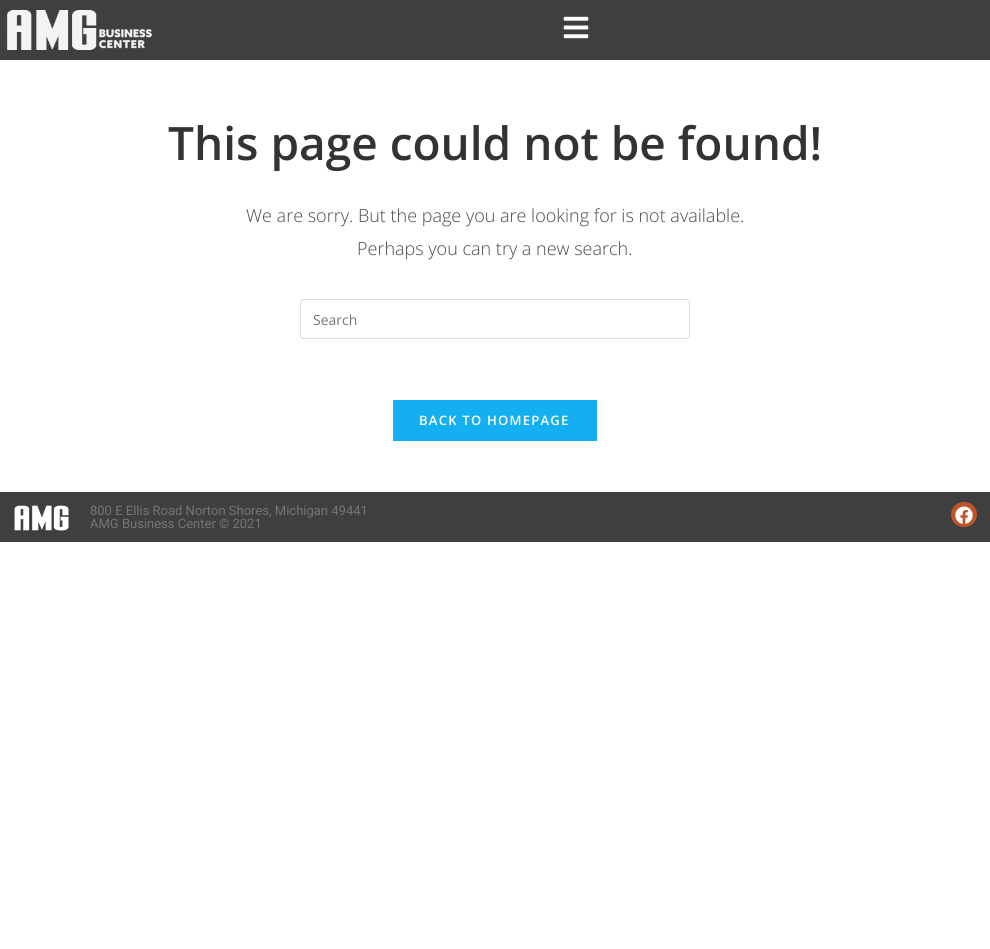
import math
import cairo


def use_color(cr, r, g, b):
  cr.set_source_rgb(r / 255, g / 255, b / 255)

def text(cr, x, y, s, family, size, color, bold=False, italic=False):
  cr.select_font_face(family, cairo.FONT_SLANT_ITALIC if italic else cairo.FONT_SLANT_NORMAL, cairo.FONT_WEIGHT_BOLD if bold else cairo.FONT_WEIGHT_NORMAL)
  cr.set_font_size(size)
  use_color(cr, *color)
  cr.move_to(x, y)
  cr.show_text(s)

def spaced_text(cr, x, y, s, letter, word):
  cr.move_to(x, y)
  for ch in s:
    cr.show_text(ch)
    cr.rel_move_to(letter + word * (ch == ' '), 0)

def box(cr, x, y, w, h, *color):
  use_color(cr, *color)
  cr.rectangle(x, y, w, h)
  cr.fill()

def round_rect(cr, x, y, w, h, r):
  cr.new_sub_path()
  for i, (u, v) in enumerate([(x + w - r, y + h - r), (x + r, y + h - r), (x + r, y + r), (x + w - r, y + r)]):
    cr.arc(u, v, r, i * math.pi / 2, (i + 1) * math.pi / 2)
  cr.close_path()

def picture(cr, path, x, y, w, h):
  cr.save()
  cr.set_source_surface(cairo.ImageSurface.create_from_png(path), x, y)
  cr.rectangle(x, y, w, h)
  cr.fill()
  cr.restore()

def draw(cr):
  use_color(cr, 255, 255, 255)
  cr.paint()
  box(cr, 0, 0, 990, 60, 63, 63, 63)
  picture(cr, "img_01.png", 7, 10, 145, 40)
  picture(cr, "img_02.png", 563, 16, 26, 23)
  round_rect(cr, 300.5, 299.5, 389, 39, 2.5)
  use_color(cr, 221, 221, 221)
  cr.set_line_width(1)
  cr.stroke()
  box(cr, 393, 400, 204, 41, 19, 175, 240)
  box(cr, 0, 492, 990, 50, 63, 63, 63)
  picture(cr, "img_03.png", 14, 505, 55, 26)
  use_color(cr, 191, 84, 40)
  round_rect(cr, 951, 502, 26, 25, 12.5)
  cr.fill()
  picture(cr, "img_04.png", 955, 506, 18, 18)
  text(cr, 168, 160, "This page could not be found!", "Open Sans SemiBold", 46, (51, 51, 51))
  text(cr, 246, 222, "We are sorry. But the page you are looking for is not available.", "Open Sans Light", 18, (74, 74, 74))
  text(cr, 357, 255, "Perhaps you can try a new search.", "Open Sans Light", 18, (74, 74, 74))
  text(cr, 313, 325, "Search", "Open Sans", 14, (117, 117, 117))
  cr.select_font_face("Open Sans SemiBold")
  cr.set_font_size(13)
  use_color(cr, 255, 255, 255)
  spaced_text(cr, 419, 425, "BACK TO HOMEPAGE", 1.25, 0)
  text(cr, 90, 515, "800 E Ellis Road Norton Shores, Michigan 49441", "Roboto", 13, (117, 117, 117))
  text(cr, 90, 528, "AMG Business Center © 2021", "Roboto", 13, (117, 117, 117))


surface = cairo.ImageSurface(cairo.FORMAT_RGB24, 990, 949)
cr = cairo.Context(surface)
options = cairo.FontOptions()
options.set_hint_metrics(cairo.HINT_METRICS_OFF)
options.set_hint_style(cairo.HINT_STYLE_NONE)
cr.set_font_options(options)
cr.set_miter_limit(4)
draw(cr)
surface.write_to_png("out.png")
